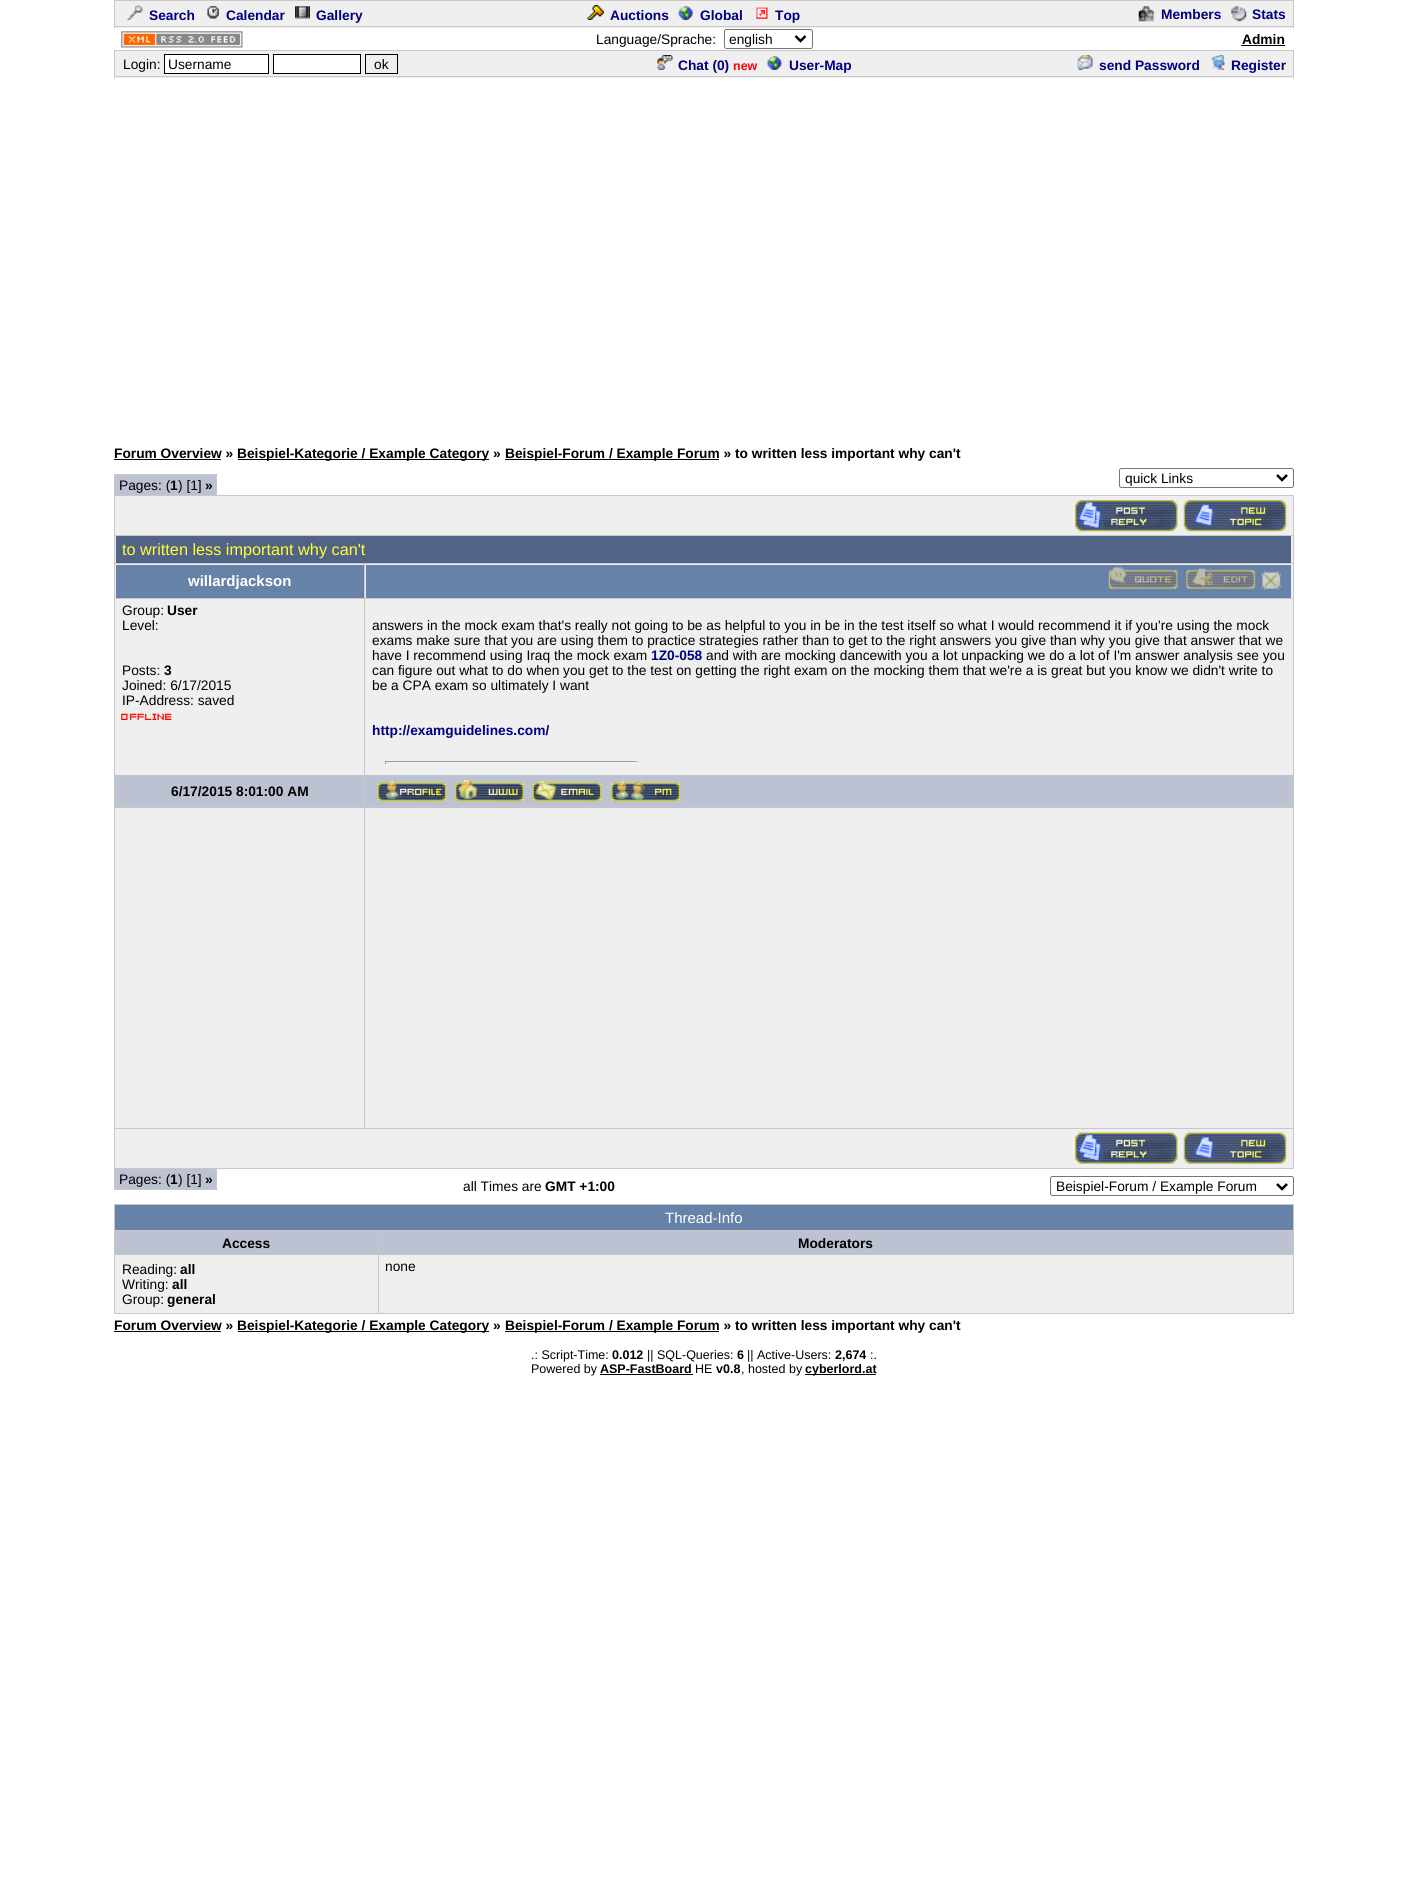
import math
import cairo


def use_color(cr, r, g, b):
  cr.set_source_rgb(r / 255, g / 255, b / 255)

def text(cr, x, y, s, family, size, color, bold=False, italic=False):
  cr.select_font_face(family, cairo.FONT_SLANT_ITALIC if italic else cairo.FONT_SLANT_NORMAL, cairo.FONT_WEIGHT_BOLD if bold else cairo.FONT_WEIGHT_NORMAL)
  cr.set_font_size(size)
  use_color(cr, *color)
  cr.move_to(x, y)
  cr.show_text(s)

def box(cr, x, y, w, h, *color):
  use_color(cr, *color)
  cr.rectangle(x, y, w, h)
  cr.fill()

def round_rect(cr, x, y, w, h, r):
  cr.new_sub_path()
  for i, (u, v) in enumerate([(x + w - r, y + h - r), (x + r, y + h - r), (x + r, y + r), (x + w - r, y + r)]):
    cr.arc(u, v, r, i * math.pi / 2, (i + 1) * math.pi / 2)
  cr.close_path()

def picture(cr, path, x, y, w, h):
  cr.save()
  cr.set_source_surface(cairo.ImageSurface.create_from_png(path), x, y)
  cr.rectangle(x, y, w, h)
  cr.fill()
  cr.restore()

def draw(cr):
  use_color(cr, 255, 255, 255)
  cr.paint()
  box(cr, 115, 1, 1178, 27, 239, 239, 239)
  box(cr, 114, 0, 1180, 1, 200, 200, 200)
  box(cr, 1293, 0, 1, 28, 200, 200, 200)
  box(cr, 114, 26, 1180, 1, 200, 200, 200)
  box(cr, 114, 0, 1, 28, 200, 200, 200)
  picture(cr, "img_01.png", 127, 5, 16, 15)
  picture(cr, "img_02.png", 207, 6, 12, 13)
  picture(cr, "img_03.png", 295, 6, 15, 13)
  picture(cr, "img_04.png", 587, 5, 17, 15)
  picture(cr, "img_05.png", 678, 6, 15, 14)
  picture(cr, "img_06.png", 756, 7, 12, 12)
  picture(cr, "img_07.png", 1138, 6, 16, 16)
  picture(cr, "img_08.png", 1231, 6, 16, 16)
  picture(cr, "img_09.png", 121, 31, 122, 17)
  round_rect(cr, 724.5, 29.5, 88, 19, 2)
  use_color(cr, 118, 118, 118)
  cr.set_line_width(1)
  cr.stroke()
  cr.new_path()
  cr.move_to(795.5, 36)
  cr.line_to(800.5, 41)
  cr.line_to(805.5, 36)
  use_color(cr, 0, 0, 0)
  cr.set_line_width(2.5)
  cr.stroke()
  box(cr, 1241, 45, 44, 1, 0, 0, 0)
  box(cr, 115, 51, 1178, 27, 239, 239, 239)
  box(cr, 114, 50, 1180, 1, 200, 200, 200)
  box(cr, 1293, 50, 1, 28, 200, 200, 200)
  box(cr, 114, 76, 1180, 1, 200, 200, 200)
  box(cr, 114, 50, 1, 28, 200, 200, 200)
  use_color(cr, 255, 255, 255)
  cr.rectangle(164.5, 54.5, 104, 19)
  cr.fill_preserve()
  use_color(cr, 0, 0, 0)
  cr.set_line_width(1)
  cr.stroke()
  use_color(cr, 255, 255, 255)
  cr.rectangle(273.5, 54.5, 87, 19)
  cr.fill_preserve()
  use_color(cr, 0, 0, 0)
  cr.stroke()
  cr.rectangle(365.5, 54.5, 32, 19)
  cr.stroke()
  picture(cr, "img_10.png", 657, 55, 16, 15)
  picture(cr, "img_11.png", 767, 56, 15, 14)
  picture(cr, "img_12.png", 1077, 55, 16, 15)
  picture(cr, "img_13.png", 1211, 55, 14, 15)
  box(cr, 114, 459, 107, 1, 0, 0, 0)
  box(cr, 238, 459, 251, 1, 0, 0, 0)
  box(cr, 505, 459, 214, 1, 0, 0, 0)
  box(cr, 115, 475, 101, 20, 188, 194, 210)
  box(cr, 114, 474, 104, 1, 200, 200, 200)
  box(cr, 216, 474, 1, 21, 200, 200, 200)
  box(cr, 114, 474, 1, 21, 200, 200, 200)
  round_rect(cr, 1119.5, 468.5, 174, 19, 2)
  use_color(cr, 118, 118, 118)
  cr.stroke()
  cr.new_path()
  cr.move_to(1277, 475)
  cr.line_to(1282, 480)
  cr.line_to(1287, 475)
  use_color(cr, 0, 0, 0)
  cr.set_line_width(2.5)
  cr.stroke()
  box(cr, 115, 496, 1178, 39, 239, 239, 239)
  box(cr, 114, 495, 1180, 1, 200, 200, 200)
  box(cr, 1293, 495, 1, 69, 200, 200, 200)
  box(cr, 114, 535, 1180, 1, 200, 200, 200)
  box(cr, 114, 495, 1, 69, 200, 200, 200)
  picture(cr, "img_14.png", 1075, 500, 103, 32)
  picture(cr, "img_15.png", 1183, 500, 104, 32)
  box(cr, 115, 536, 1178, 27, 239, 239, 239)
  box(cr, 116, 536, 1175, 27, 82, 99, 136)
  box(cr, 115, 564, 1178, 564, 239, 239, 239)
  box(cr, 116, 565, 248, 33, 103, 130, 168)
  box(cr, 364, 563, 930, 1, 200, 200, 200)
  box(cr, 364, 598, 930, 1, 200, 200, 200)
  box(cr, 115, 775, 1178, 33, 188, 194, 210)
  box(cr, 364, 806, 930, 1, 200, 200, 200)
  box(cr, 364, 806, 1, 323, 200, 200, 200)
  box(cr, 114, 806, 251, 1, 200, 200, 200)
  box(cr, 364, 775, 1, 33, 200, 200, 200)
  box(cr, 364, 598, 1, 178, 200, 200, 200)
  box(cr, 114, 598, 251, 1, 200, 200, 200)
  box(cr, 364, 563, 1, 36, 200, 200, 200)
  box(cr, 114, 563, 251, 1, 200, 200, 200)
  box(cr, 114, 775, 1, 354, 200, 200, 200)
  box(cr, 114, 598, 1, 178, 200, 200, 200)
  box(cr, 114, 563, 1, 36, 200, 200, 200)
  box(cr, 366, 565, 925, 33, 103, 130, 168)
  box(cr, 1293, 775, 1, 354, 200, 200, 200)
  box(cr, 1293, 598, 1, 178, 200, 200, 200)
  box(cr, 1293, 563, 1, 36, 200, 200, 200)
  picture(cr, "img_16.png", 1108, 567, 70, 22)
  picture(cr, "img_17.png", 1186, 568, 70, 21)
  picture(cr, "img_18.png", 1261, 571, 21, 19)
  picture(cr, "img_19.png", 121, 713, 51, 7)
  box(cr, 385, 761, 253, 1, 159, 159, 159)
  box(cr, 636, 761, 1, 3, 238, 238, 238)
  box(cr, 385, 761, 1, 3, 159, 159, 159)
  picture(cr, "img_20.png", 377, 781, 70, 21)
  picture(cr, "img_21.png", 454, 780, 70, 22)
  picture(cr, "img_22.png", 532, 781, 70, 21)
  picture(cr, "img_23.png", 611, 781, 70, 21)
  box(cr, 115, 1129, 1178, 39, 239, 239, 239)
  box(cr, 114, 1128, 1180, 1, 200, 200, 200)
  box(cr, 1293, 1128, 1, 41, 200, 200, 200)
  box(cr, 114, 1168, 1180, 1, 200, 200, 200)
  box(cr, 114, 1128, 1, 41, 200, 200, 200)
  picture(cr, "img_24.png", 1075, 1132, 103, 32)
  picture(cr, "img_25.png", 1183, 1132, 104, 32)
  box(cr, 115, 1169, 101, 20, 188, 194, 210)
  box(cr, 216, 1169, 1, 21, 200, 200, 200)
  box(cr, 114, 1189, 104, 1, 200, 200, 200)
  box(cr, 114, 1169, 1, 21, 200, 200, 200)
  round_rect(cr, 1050.5, 1176.5, 243, 19, 2)
  use_color(cr, 118, 118, 118)
  cr.set_line_width(1)
  cr.stroke()
  cr.new_path()
  cr.move_to(1277, 1184)
  cr.line_to(1282, 1189)
  cr.line_to(1287, 1184)
  use_color(cr, 0, 0, 0)
  cr.set_line_width(2.5)
  cr.stroke()
  box(cr, 115, 1255, 1178, 58, 239, 239, 239)
  box(cr, 115, 1205, 1178, 25, 103, 130, 168)
  box(cr, 114, 1204, 1180, 1, 200, 200, 200)
  box(cr, 378, 1230, 916, 1, 200, 200, 200)
  box(cr, 378, 1254, 916, 1, 200, 200, 200)
  box(cr, 1293, 1254, 1, 60, 200, 200, 200)
  box(cr, 1293, 1230, 1, 25, 200, 200, 200)
  box(cr, 1293, 1204, 1, 27, 200, 200, 200)
  box(cr, 115, 1231, 1178, 23, 188, 194, 210)
  box(cr, 378, 1313, 916, 1, 200, 200, 200)
  box(cr, 378, 1254, 1, 60, 200, 200, 200)
  box(cr, 114, 1254, 265, 1, 200, 200, 200)
  box(cr, 378, 1230, 1, 25, 200, 200, 200)
  box(cr, 114, 1230, 265, 1, 200, 200, 200)
  box(cr, 114, 1313, 265, 1, 200, 200, 200)
  box(cr, 114, 1254, 1, 60, 200, 200, 200)
  box(cr, 114, 1230, 1, 25, 200, 200, 200)
  box(cr, 114, 1204, 1, 27, 200, 200, 200)
  box(cr, 114, 1331, 107, 1, 0, 0, 0)
  box(cr, 238, 1331, 251, 1, 0, 0, 0)
  box(cr, 505, 1331, 214, 1, 0, 0, 0)
  box(cr, 600, 1374, 93, 1, 0, 0, 0)
  box(cr, 805, 1374, 71, 1, 0, 0, 0)
  text(cr, 149, 20, "Search", "Liberation Sans", 13.75, (0, 0, 128), bold=True)
  text(cr, 226, 20, "Calendar", "Liberation Sans", 13.75, (0, 0, 128), bold=True)
  text(cr, 316, 20, "Gallery", "Liberation Sans", 13.75, (0, 0, 128), bold=True)
  text(cr, 610, 20, "Auctions", "Liberation Sans", 13.75, (0, 0, 128), bold=True)
  text(cr, 700, 20, "Global", "Liberation Sans", 13.75, (0, 0, 128), bold=True)
  text(cr, 775, 20, "Top", "Liberation Sans", 13.75, (0, 0, 128), bold=True)
  text(cr, 1161, 19, "Members", "Liberation Sans", 13.75, (0, 0, 128), bold=True)
  text(cr, 1252, 19, "Stats", "Liberation Sans", 13.75, (0, 0, 128), bold=True)
  text(cr, 596, 44, "Language/Sprache:", "Liberation Sans", 13.75, (0, 0, 0))
  text(cr, 729, 44, "english", "Liberation Sans", 13.75, (0, 0, 0))
  text(cr, 1242, 44, "Admin", "Liberation Sans", 13.75, (0, 0, 0), bold=True)
  text(cr, 123, 69, "Login:", "Liberation Sans", 13.75, (0, 0, 0))
  text(cr, 168, 69, "Username", "Liberation Sans", 13.75, (0, 0, 0))
  text(cr, 374, 69, "ok", "Liberation Sans", 13.75, (0, 0, 0))
  text(cr, 678, 70, "Chat (0)", "Liberation Sans", 13.75, (0, 0, 128), bold=True)
  text(cr, 733, 70, "new", "Liberation Sans", 12.5, (255, 0, 0), bold=True)
  text(cr, 789, 70, "User-Map", "Liberation Sans", 13.75, (0, 0, 128), bold=True)
  text(cr, 1099, 70, "send Password", "Liberation Sans", 13.75, (0, 0, 128), bold=True)
  text(cr, 1231, 70, "Register", "Liberation Sans", 13.75, (0, 0, 128), bold=True)
  text(cr, 114, 458, "Forum Overview »", "Liberation Sans", 13.75, (0, 0, 0), bold=True)
  text(cr, 237, 458, "Beispiel-Kategorie / Example Category »", "Liberation Sans", 13.75, (0, 0, 0), bold=True)
  text(cr, 505, 458, "Beispiel-Forum / Example Forum » to written less important why can't", "Liberation Sans", 13.75, (0, 0, 0), bold=True)
  text(cr, 119, 490, "Pages: (", "Liberation Sans", 13.75, (0, 0, 0))
  text(cr, 170, 490, "1", "Liberation Sans", 13.75, (0, 0, 0), bold=True)
  text(cr, 178, 490, ") [1]", "Liberation Sans", 13.75, (0, 0, 0))
  text(cr, 205, 490, "»", "Liberation Sans", 13.75, (0, 0, 0), bold=True)
  text(cr, 1125, 483, "quick Links", "Liberation Sans", 13.75, (0, 0, 0))
  text(cr, 122, 555, "to written less important why can't", "Liberation Sans", 16.25, (255, 255, 51))
  text(cr, 188, 586, "willardjackson", "Liberation Sans", 15, (255, 255, 255), bold=True)
  text(cr, 122, 615, "Group:", "Liberation Sans", 13.75, (0, 0, 0))
  text(cr, 167, 615, "User", "Liberation Sans", 13.75, (0, 0, 0), bold=True)
  text(cr, 122, 630, "Level:", "Liberation Sans", 13.75, (0, 0, 0))
  text(cr, 122, 675, "Posts:", "Liberation Sans", 13.75, (0, 0, 0))
  text(cr, 164, 675, "3", "Liberation Sans", 13.75, (0, 0, 0), bold=True)
  text(cr, 122, 690, "Joined: 6/17/2015", "Liberation Sans", 13.75, (0, 0, 0))
  text(cr, 122, 705, "IP-Address: saved", "Liberation Sans", 13.75, (0, 0, 0))
  text(cr, 372, 630, "answers in the mock exam that's really not going to be as helpful to you in be in the test itself so what I would recommend it if you're using the mock", "Liberation Sans", 13.75, (0, 0, 0))
  text(cr, 372, 645, "exams make sure that you are using them to practice strategies rather than to get to the right answers you give than why you give that answer that we", "Liberation Sans", 13.75, (0, 0, 0))
  text(cr, 372, 660, "have I recommend using Iraq the mock exam", "Liberation Sans", 13.75, (0, 0, 0))
  text(cr, 651, 660, "1Z0-058", "Liberation Sans", 13.75, (0, 0, 128), bold=True)
  text(cr, 706, 660, "and with are mocking dancewith you a lot unpacking we do a lot of I'm answer analysis see you", "Liberation Sans", 13.75, (0, 0, 0))
  text(cr, 372, 675, "can figure out what to do when you get to the test on getting the right exam on the mocking them that we're a is great but you know we didn't write to", "Liberation Sans", 13.75, (0, 0, 0))
  text(cr, 372, 690, "be a CPA exam so ultimately I want", "Liberation Sans", 13.75, (0, 0, 0))
  text(cr, 372, 735, "http://examguidelines.com/", "Liberation Sans", 13.75, (0, 0, 128), bold=True)
  text(cr, 171, 796, "6/17/2015 8:01:00 AM", "Liberation Sans", 13.75, (0, 0, 0), bold=True)
  text(cr, 119, 1184, "Pages: (", "Liberation Sans", 13.75, (0, 0, 0))
  text(cr, 170, 1184, "1", "Liberation Sans", 13.75, (0, 0, 0), bold=True)
  text(cr, 178, 1184, ") [1]", "Liberation Sans", 13.75, (0, 0, 0))
  text(cr, 205, 1184, "»", "Liberation Sans", 13.75, (0, 0, 0), bold=True)
  text(cr, 463, 1191, "all Times are", "Liberation Sans", 13.75, (0, 0, 0))
  text(cr, 545, 1191, "GMT +1:00", "Liberation Sans", 13.75, (0, 0, 0), bold=True)
  text(cr, 1056, 1191, "Beispiel-Forum / Example Forum", "Liberation Sans", 13.75, (0, 0, 0))
  text(cr, 665, 1223, "Thread-Info", "Liberation Sans", 15, (255, 255, 255))
  text(cr, 222, 1248, "Access", "Liberation Sans", 13.75, (0, 0, 0), bold=True)
  text(cr, 798, 1248, "Moderators", "Liberation Sans", 13.75, (0, 0, 0), bold=True)
  text(cr, 122, 1274, "Reading:", "Liberation Sans", 13.75, (0, 0, 0))
  text(cr, 180, 1274, "all", "Liberation Sans", 13.75, (0, 0, 0), bold=True)
  text(cr, 122, 1289, "Writing:", "Liberation Sans", 13.75, (0, 0, 0))
  text(cr, 172, 1289, "all", "Liberation Sans", 13.75, (0, 0, 0), bold=True)
  text(cr, 122, 1304, "Group:", "Liberation Sans", 13.75, (0, 0, 0))
  text(cr, 167, 1304, "general", "Liberation Sans", 13.75, (0, 0, 0), bold=True)
  text(cr, 385, 1271, "none", "Liberation Sans", 13.75, (0, 0, 0))
  text(cr, 114, 1330, "Forum Overview »", "Liberation Sans", 13.75, (0, 0, 0), bold=True)
  text(cr, 237, 1330, "Beispiel-Kategorie / Example Category »", "Liberation Sans", 13.75, (0, 0, 0), bold=True)
  text(cr, 505, 1330, "Beispiel-Forum / Example Forum » to written less important why can't", "Liberation Sans", 13.75, (0, 0, 0), bold=True)
  text(cr, 531, 1359, ".: Script-Time:", "Liberation Sans", 12.5, (0, 0, 0))
  text(cr, 612, 1359, "0.012", "Liberation Sans", 12.5, (0, 0, 0), bold=True)
  text(cr, 647, 1359, "|| SQL-Queries:", "Liberation Sans", 12.5, (0, 0, 0))
  text(cr, 737, 1359, "6", "Liberation Sans", 12.5, (0, 0, 0), bold=True)
  text(cr, 747, 1359, "|| Active-Users:", "Liberation Sans", 12.5, (0, 0, 0))
  text(cr, 835, 1359, "2,674", "Liberation Sans", 12.5, (0, 0, 0), bold=True)
  text(cr, 870, 1359, ":.", "Liberation Sans", 12.5, (0, 0, 0))
  text(cr, 531, 1373, "Powered by", "Liberation Sans", 12.5, (0, 0, 0))
  text(cr, 600, 1373, "ASP-FastBoard", "Liberation Sans", 12.5, (0, 0, 0), bold=True)
  text(cr, 695, 1373, "HE", "Liberation Sans", 12.5, (0, 0, 0))
  text(cr, 716, 1373, "v0.8", "Liberation Sans", 12.5, (0, 0, 0), bold=True)
  text(cr, 741, 1373, ", hosted by", "Liberation Sans", 12.5, (0, 0, 0))
  text(cr, 805, 1373, "cyberlord.at", "Liberation Sans", 12.5, (0, 0, 0), bold=True)


surface = cairo.ImageSurface(cairo.FORMAT_RGB24, 1407, 1877)
cr = cairo.Context(surface)
options = cairo.FontOptions()
options.set_hint_metrics(cairo.HINT_METRICS_OFF)
options.set_hint_style(cairo.HINT_STYLE_NONE)
cr.set_font_options(options)
cr.set_miter_limit(4)
draw(cr)
surface.write_to_png("out.png")
